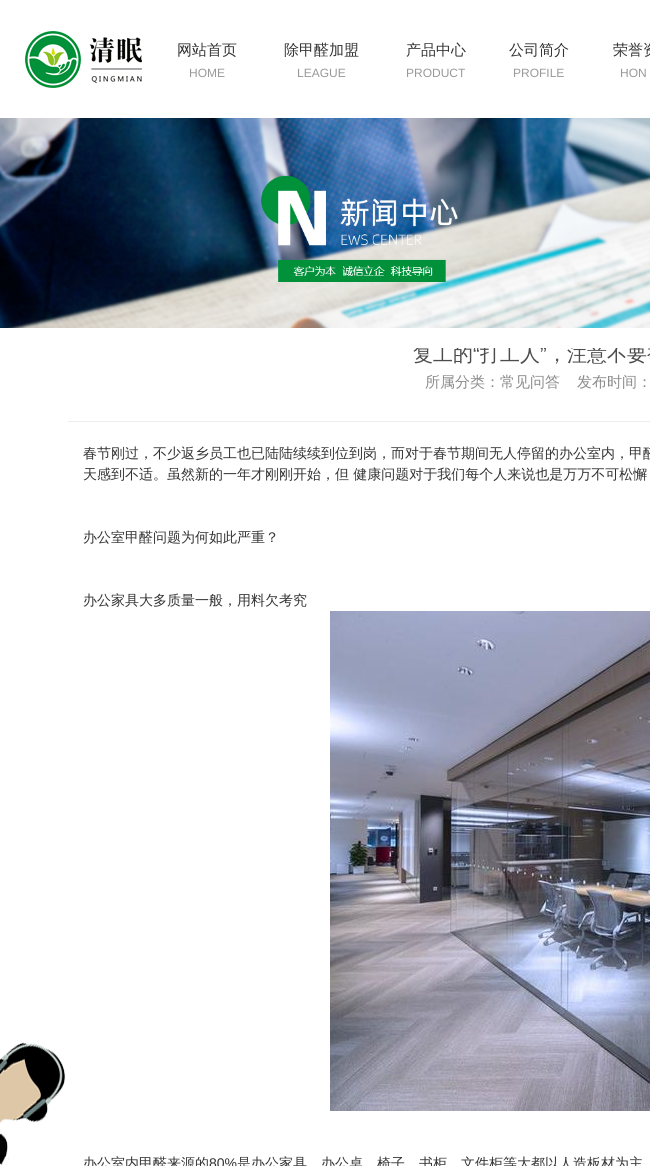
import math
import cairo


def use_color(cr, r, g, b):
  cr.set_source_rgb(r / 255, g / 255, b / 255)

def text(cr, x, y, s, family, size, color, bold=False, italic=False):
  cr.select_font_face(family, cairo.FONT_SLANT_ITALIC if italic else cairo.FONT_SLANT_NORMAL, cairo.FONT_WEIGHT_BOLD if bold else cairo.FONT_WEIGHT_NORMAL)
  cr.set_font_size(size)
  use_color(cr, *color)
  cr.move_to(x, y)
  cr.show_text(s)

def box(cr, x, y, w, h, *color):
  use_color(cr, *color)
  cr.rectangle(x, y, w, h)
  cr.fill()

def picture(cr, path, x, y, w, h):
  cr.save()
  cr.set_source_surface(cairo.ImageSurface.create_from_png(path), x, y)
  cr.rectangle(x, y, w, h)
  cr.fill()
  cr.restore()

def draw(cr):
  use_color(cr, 255, 255, 255)
  cr.paint()
  picture(cr, "img_01.png", 25, 31, 117, 57)
  picture(cr, "img_02.png", 0, 118, 650, 210)
  picture(cr, "img_03.png", 0, 1042, 66, 123)
  box(cr, 68, 421, 582, 1, 237, 237, 237)
  picture(cr, "img_04.png", 330, 611, 320, 500)
  text(cr, 177, 55, "网站首页", "WenQuanYi Zen Hei Medium", 15, (51, 51, 51))
  text(cr, 189, 77, "HOME", "Liberation Sans", 12, (153, 153, 153))
  text(cr, 284, 55, "除甲醛加盟", "WenQuanYi Zen Hei Medium", 15, (51, 51, 51))
  text(cr, 297, 77, "LEAGUE", "Liberation Sans", 12, (153, 153, 153))
  text(cr, 406, 55, "产品中心", "WenQuanYi Zen Hei Medium", 15, (51, 51, 51))
  text(cr, 406, 77, "PRODUCT", "Liberation Sans", 12, (153, 153, 153))
  text(cr, 509, 55, "公司简介", "WenQuanYi Zen Hei Medium", 15, (51, 51, 51))
  text(cr, 513, 77, "PROFILE", "Liberation Sans", 12, (153, 153, 153))
  text(cr, 613, 55, "荣誉资", "WenQuanYi Zen Hei Medium", 15, (51, 51, 51))
  text(cr, 620, 77, "HON", "Liberation Sans", 12, (153, 153, 153))
  cr.save()
  cr.rectangle(45, 348, 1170, 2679)
  cr.clip()
  text(cr, 413, 361, "复工的", "WenQuanYi Zen Hei Medium", 20, (76, 76, 76))
  text(cr, 473, 361, "“", "Liberation Sans", 20, (76, 76, 76))
  text(cr, 480, 361, "打工人", "WenQuanYi Zen Hei Medium", 20, (76, 76, 76))
  text(cr, 540, 361, "”", "Liberation Sans", 20, (76, 76, 76))
  text(cr, 547, 361, "，注意不要被", "WenQuanYi Zen Hei Medium", 20, (76, 76, 76))
  cr.restore()
  text(cr, 425, 387, "所属分类：常见问答", "WenQuanYi Zen Hei Medium", 15, (140, 140, 140))
  text(cr, 577, 387, "发布时间：", "WenQuanYi Zen Hei Medium", 15, (140, 140, 140))
  text(cr, 83, 458, "春节刚过，不少返乡员工也已陆陆续续到位到岗，而对于春节期间无人停留的办公室内，甲醛", "WenQuanYi Zen Hei Medium", 14, (51, 51, 51))
  text(cr, 83, 479, "天感到不适。虽然新的一年才刚刚开始，但 健康问题对于我们每个人来说也是万万不可松懈", "WenQuanYi Zen Hei Medium", 14, (51, 51, 51))
  text(cr, 83, 542, "办公室甲醛问题为何如此严重？", "WenQuanYi Zen Hei Medium", 14, (51, 51, 51))
  text(cr, 83, 605, "办公家具大多质量一般，用料欠考究", "WenQuanYi Zen Hei Medium", 14, (51, 51, 51))
  text(cr, 83, 1168, "办公室内甲醛来源的", "WenQuanYi Zen Hei Medium", 14, (51, 51, 51))
  text(cr, 209, 1168, "80%", "Liberation Sans", 14, (51, 51, 51))
  text(cr, 237, 1168, "是办公家具。办公桌、椅子、书柜、文件柜等大都以人造板材为主", "WenQuanYi Zen Hei Medium", 14, (51, 51, 51))


surface = cairo.ImageSurface(cairo.FORMAT_RGB24, 650, 1166)
cr = cairo.Context(surface)
options = cairo.FontOptions()
options.set_hint_metrics(cairo.HINT_METRICS_OFF)
options.set_hint_style(cairo.HINT_STYLE_NONE)
cr.set_font_options(options)
cr.set_miter_limit(4)
draw(cr)
surface.write_to_png("out.png")
